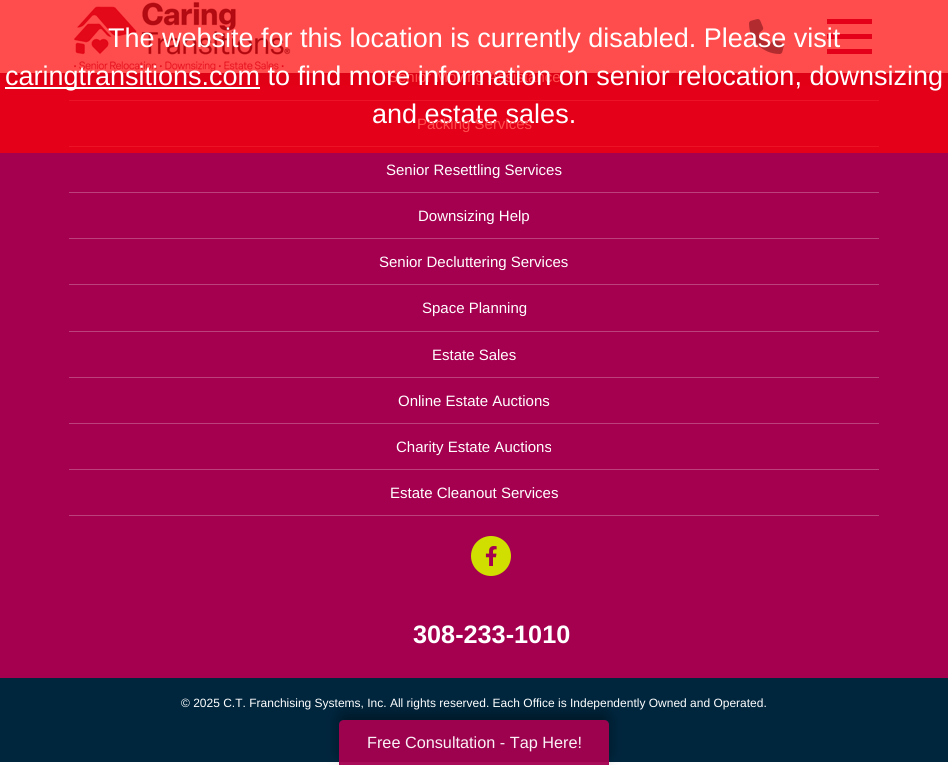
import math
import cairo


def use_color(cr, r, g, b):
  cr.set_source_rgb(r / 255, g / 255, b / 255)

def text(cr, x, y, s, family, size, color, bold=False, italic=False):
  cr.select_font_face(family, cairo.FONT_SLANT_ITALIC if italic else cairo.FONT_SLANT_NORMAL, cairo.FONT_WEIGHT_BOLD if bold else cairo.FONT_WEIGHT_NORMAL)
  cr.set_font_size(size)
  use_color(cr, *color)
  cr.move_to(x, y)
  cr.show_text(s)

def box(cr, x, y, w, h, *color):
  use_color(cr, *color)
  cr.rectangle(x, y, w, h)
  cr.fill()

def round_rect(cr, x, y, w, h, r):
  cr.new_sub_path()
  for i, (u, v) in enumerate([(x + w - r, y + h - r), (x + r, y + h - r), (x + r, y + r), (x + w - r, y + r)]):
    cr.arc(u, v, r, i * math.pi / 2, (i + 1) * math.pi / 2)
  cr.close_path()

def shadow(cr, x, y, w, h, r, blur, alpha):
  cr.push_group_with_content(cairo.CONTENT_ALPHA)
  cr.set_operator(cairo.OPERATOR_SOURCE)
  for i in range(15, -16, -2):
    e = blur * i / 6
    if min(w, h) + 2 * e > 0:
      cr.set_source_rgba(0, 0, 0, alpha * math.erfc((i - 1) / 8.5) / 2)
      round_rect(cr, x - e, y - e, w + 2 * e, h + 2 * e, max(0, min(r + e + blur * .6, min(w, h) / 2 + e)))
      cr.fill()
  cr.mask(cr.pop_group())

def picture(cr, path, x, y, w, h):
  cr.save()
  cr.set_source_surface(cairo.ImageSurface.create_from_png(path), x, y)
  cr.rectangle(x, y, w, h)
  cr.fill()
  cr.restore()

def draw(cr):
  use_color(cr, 255, 255, 255)
  cr.paint()
  box(cr, 0, 73, 948, 80, 228, 0, 24)
  use_color(cr, 179, 0, 0)
  shadow(cr, 6, 6, 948, 73, 0, 6, 0.16)
  box(cr, 0, 0, 948, 73, 255, 77, 77)
  picture(cr, "img_01.png", 74, 2, 217, 70)
  picture(cr, "img_02.png", 749, 19, 35, 35)
  box(cr, 827, 19, 45, 5, 228, 0, 24)
  box(cr, 827, 34, 45, 5, 228, 0, 24)
  box(cr, 827, 49, 45, 5, 228, 0, 24)
  box(cr, 5, 87, 255, 2, 255, 255, 255)
  box(cr, 0, 153, 948, 525, 165, 0, 80)
  box(cr, 69, 100, 810, 1, 235, 19, 37)
  box(cr, 69, 146, 810, 1, 235, 19, 37)
  box(cr, 69, 192, 810, 1, 188, 64, 124)
  box(cr, 69, 238, 810, 1, 188, 64, 124)
  box(cr, 69, 284, 810, 1, 188, 64, 124)
  box(cr, 69, 331, 810, 1, 188, 64, 124)
  box(cr, 69, 377, 810, 1, 188, 64, 124)
  box(cr, 69, 423, 810, 1, 188, 64, 124)
  box(cr, 69, 469, 810, 1, 188, 64, 124)
  box(cr, 69, 515, 810, 1, 188, 64, 124)
  use_color(cr, 208, 223, 0)
  cr.arc(491, 556, 20, 0, 2 * math.pi)
  cr.fill()
  picture(cr, "img_03.png", 485, 546, 12, 20)
  box(cr, 0, 678, 948, 84, 0, 38, 62)
  cr.save()
  cr.set_fill_rule(cairo.FILL_RULE_EVEN_ODD)
  cr.new_path()
  cr.move_to(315, 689)
  cr.line_to(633, 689)
  cr.line_to(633, 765)
  cr.line_to(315, 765)
  cr.close_path()
  cr.move_to(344, 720)
  cr.line_to(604, 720)
  cr.curve_to(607, 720, 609, 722, 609, 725)
  cr.line_to(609, 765)
  cr.line_to(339, 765)
  cr.line_to(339, 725)
  cr.curve_to(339, 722, 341, 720, 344, 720)
  cr.close_path()
  cr.clip()
  use_color(cr, 0, 0, 0)
  shadow(cr, 339, 713, 270, 45, 5, 7.5, 0.38)
  cr.restore()
  cr.set_source_rgba(0.647, 0, 0.314, 0.95)
  cr.new_path()
  cr.move_to(344, 720)
  cr.line_to(604, 720)
  cr.curve_to(607, 720, 609, 722, 609, 725)
  cr.line_to(609, 765)
  cr.line_to(339, 765)
  cr.line_to(339, 725)
  cr.curve_to(339, 722, 341, 720, 344, 720)
  cr.close_path()
  cr.fill()
  text(cr, 108, 47, "The website for this location is currently disabled. Please visit", "Liberation Sans", 27, (255, 255, 255))
  text(cr, 372, 123, "and estate sales.", "Liberation Sans", 27, (255, 255, 255))
  text(cr, 388, 82, "Senior Moving Assistance", "Liberation Sans", 15, (255, 77, 77))
  text(cr, 5, 85, "caringtransitions.com to find more information on senior relocation, downsizing", "Liberation Sans", 27, (255, 255, 255))
  text(cr, 417, 129, "Packing Services", "Liberation Sans", 15, (255, 77, 77))
  text(cr, 386, 175, "Senior Resettling Services", "Liberation Sans", 15, (255, 255, 255))
  text(cr, 418, 221, "Downsizing Help", "Liberation Sans", 15, (255, 255, 255))
  text(cr, 379, 267, "Senior Decluttering Services", "Liberation Sans", 15, (255, 255, 255))
  text(cr, 422, 313, "Space Planning", "Liberation Sans", 15, (255, 255, 255))
  text(cr, 432, 360, "Estate Sales", "Liberation Sans", 15, (255, 255, 255))
  text(cr, 398, 406, "Online Estate Auctions", "Liberation Sans", 15, (255, 255, 255))
  text(cr, 396, 452, "Charity Estate Auctions", "Liberation Sans", 15, (255, 255, 255))
  text(cr, 390, 498, "Estate Cleanout Services", "Liberation Sans", 15, (255, 255, 255))
  text(cr, 413, 643, "308-233-1010", "Liberation Sans", 25.25, (255, 255, 255), bold=True)
  text(cr, 181, 707, "© 2025 C.T. Franchising Systems, Inc. All rights reserved. Each Office is Independently Owned and Operated.", "Liberation Sans", 12, (255, 255, 255))
  text(cr, 367, 748, "Free Consultation - Tap Here!", "Liberation Sans", 16.25, (250, 242, 246))


surface = cairo.ImageSurface(cairo.FORMAT_RGB24, 948, 765)
cr = cairo.Context(surface)
options = cairo.FontOptions()
options.set_hint_metrics(cairo.HINT_METRICS_OFF)
options.set_hint_style(cairo.HINT_STYLE_NONE)
cr.set_font_options(options)
cr.set_miter_limit(4)
draw(cr)
surface.write_to_png("out.png")
